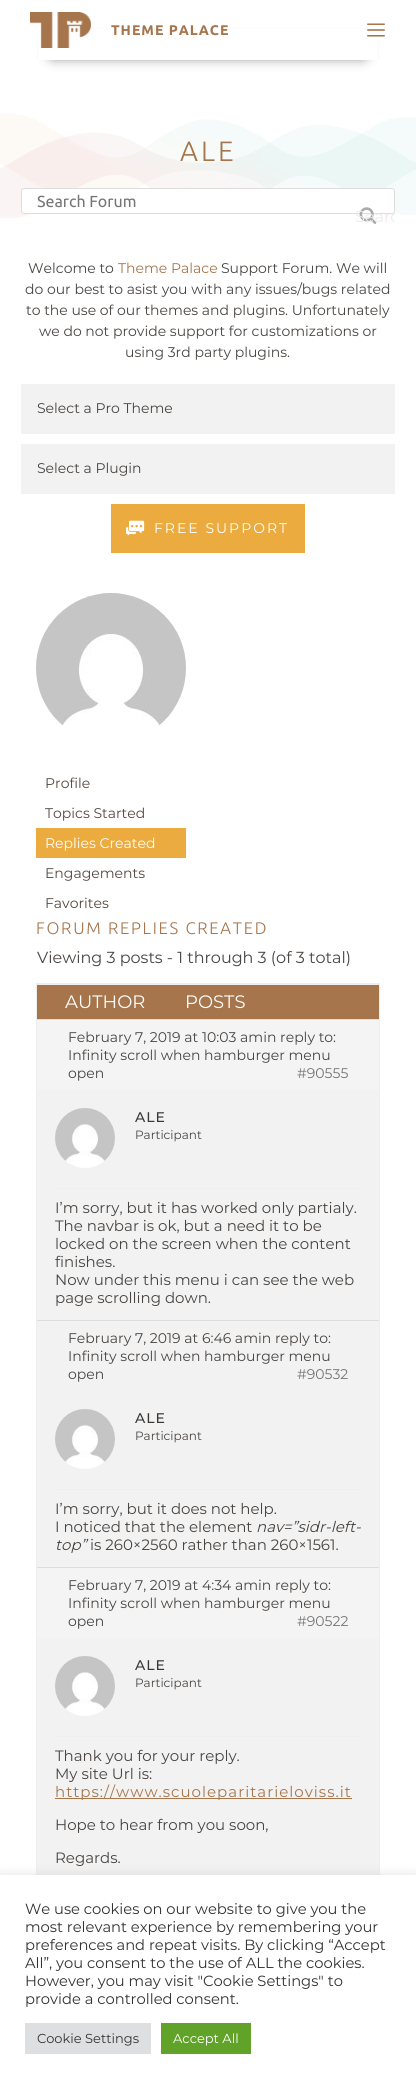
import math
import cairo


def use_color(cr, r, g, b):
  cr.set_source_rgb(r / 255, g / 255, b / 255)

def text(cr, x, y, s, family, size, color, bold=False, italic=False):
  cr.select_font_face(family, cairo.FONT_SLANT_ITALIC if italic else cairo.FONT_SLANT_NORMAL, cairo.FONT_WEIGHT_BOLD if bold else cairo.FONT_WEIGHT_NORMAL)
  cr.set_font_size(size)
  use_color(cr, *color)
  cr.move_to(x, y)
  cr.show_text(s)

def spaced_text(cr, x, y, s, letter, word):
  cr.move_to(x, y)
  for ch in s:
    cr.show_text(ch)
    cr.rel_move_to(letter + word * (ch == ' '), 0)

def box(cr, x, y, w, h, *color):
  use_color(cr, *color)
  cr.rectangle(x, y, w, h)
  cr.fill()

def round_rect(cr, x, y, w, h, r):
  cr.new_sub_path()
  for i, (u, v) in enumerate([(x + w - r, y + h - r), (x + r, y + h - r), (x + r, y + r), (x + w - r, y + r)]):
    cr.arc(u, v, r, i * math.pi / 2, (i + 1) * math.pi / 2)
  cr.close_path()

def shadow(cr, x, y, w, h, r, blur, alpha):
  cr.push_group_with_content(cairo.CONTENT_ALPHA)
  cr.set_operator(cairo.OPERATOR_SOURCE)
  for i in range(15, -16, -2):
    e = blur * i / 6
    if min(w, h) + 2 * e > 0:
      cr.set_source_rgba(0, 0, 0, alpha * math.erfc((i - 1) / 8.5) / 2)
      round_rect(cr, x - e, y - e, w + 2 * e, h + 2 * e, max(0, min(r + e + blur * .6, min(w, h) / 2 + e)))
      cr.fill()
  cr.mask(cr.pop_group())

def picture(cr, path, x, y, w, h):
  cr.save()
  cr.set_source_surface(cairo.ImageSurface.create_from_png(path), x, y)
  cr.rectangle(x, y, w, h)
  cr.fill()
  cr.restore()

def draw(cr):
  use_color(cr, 255, 255, 255)
  cr.paint()
  use_color(cr, 0, 0, 0)
  shadow(cr, 52, 45, 312, 10, 5, 7, 0.8)
  box(cr, 39, 29, 338, 31, 255, 255, 255)
  picture(cr, "img_01.png", 30, 12, 61, 36)
  picture(cr, "img_02.png", 367, 23, 18, 14)
  picture(cr, "img_03.png", 0, 114, 416, 74)
  picture(cr, "img_04.png", 0, 125, 416, 93)
  round_rect(cr, 21.5, 188.5, 373, 25, 2.5)
  cr.fill_preserve()
  use_color(cr, 221, 221, 221)
  cr.set_line_width(1)
  cr.stroke()
  picture(cr, "img_05.png", 359, 207, 18, 17)
  box(cr, 21, 384, 374, 50, 242, 242, 242)
  box(cr, 363, 401, 1, 1, 237, 237, 237)
  box(cr, 21, 444, 374, 50, 242, 242, 242)
  box(cr, 363, 461, 1, 1, 237, 237, 237)
  box(cr, 111, 504, 194, 49, 236, 171, 63)
  picture(cr, "img_06.png", 126, 520, 19, 16)
  picture(cr, "img_07.png", 36, 593, 150, 134)
  box(cr, 36, 828, 150, 30, 236, 171, 63)
  cr.rectangle(36.5, 983.5, 343, 897)
  use_color(cr, 238, 238, 238)
  cr.stroke()
  box(cr, 37, 985, 342, 34, 166, 117, 75)
  box(cr, 37, 984, 342, 1, 238, 238, 238)
  box(cr, 37, 1090, 342, 477, 242, 242, 242)
  box(cr, 37, 1020, 342, 70, 244, 244, 244)
  box(cr, 37, 1019, 342, 1, 221, 221, 221)
  box(cr, 55, 1188, 306, 1, 239, 239, 239)
  picture(cr, "img_08.png", 55, 1108, 60, 60)
  box(cr, 37, 1320, 342, 1, 221, 221, 221)
  box(cr, 55, 1489, 306, 1, 239, 239, 239)
  picture(cr, "img_08.png", 55, 1409, 60, 60)
  box(cr, 37, 1568, 342, 70, 244, 244, 244)
  box(cr, 37, 1567, 342, 1, 221, 221, 221)
  box(cr, 37, 1638, 342, 237, 242, 242, 242)
  box(cr, 55, 1736, 306, 1, 239, 239, 239)
  picture(cr, "img_08.png", 55, 1656, 60, 60)
  box(cr, 55, 1798, 297, 1, 166, 117, 75)
  use_color(cr, 172, 171, 171)
  shadow(cr, 0, 1874, 416, 209, 0, 5, 0.3)
  box(cr, 0, 1875, 416, 209, 255, 255, 255)
  box(cr, 25, 2023, 126, 31, 222, 223, 224)
  box(cr, 161, 2023, 90, 31, 97, 162, 41)
  cr.select_font_face("Ubuntu", cairo.FONT_SLANT_NORMAL, cairo.FONT_WEIGHT_BOLD)
  cr.set_font_size(14)
  use_color(cr, 166, 117, 75)
  spaced_text(cr, 111, 35, "THEME PALACE", 1, 0)
  cr.select_font_face("Ubuntu Light")
  cr.set_font_size(28)
  spaced_text(cr, 180, 161, "ALE", 3, 0)
  text(cr, 37, 207, "Search Forum", "Ubuntu", 16, (117, 117, 117))
  cr.save()
  cr.rectangle(339, 188, 56, 56)
  cr.clip()
  text(cr, 355, 222, "Searc", "Montserrat", 16, (235, 235, 235))
  cr.restore()
  text(cr, 28, 273, "Welcome to", "Montserrat", 14, (73, 69, 66))
  text(cr, 118, 273, "Theme Palace", "Montserrat", 14, (166, 117, 75))
  text(cr, 221, 273, "Support Forum. We will", "Montserrat", 14, (73, 69, 66))
  text(cr, 25, 294, "do our best to asist you with any issues/bugs related", "Montserrat", 14, (73, 69, 66))
  text(cr, 26, 315, "to the use of our themes and plugins. Unfortunately", "Montserrat", 14, (73, 69, 66))
  text(cr, 39, 336, "we do not provide support for customizations or", "Montserrat", 14, (73, 69, 66))
  text(cr, 125, 357, "using 3rd party plugins.", "Montserrat", 14, (73, 69, 66))
  text(cr, 37, 413, "Select a Pro Theme", "Montserrat", 14, (73, 69, 66))
  text(cr, 37, 473, "Select a Plugin", "Montserrat", 14, (73, 69, 66))
  use_color(cr, 255, 255, 255)
  spaced_text(cr, 154, 533, "FREE SUPPORT", 2, 0)
  text(cr, 45, 788, "Profile", "Montserrat", 14, (84, 73, 64))
  text(cr, 45, 818, "Topics Started", "Montserrat", 14, (84, 73, 64))
  text(cr, 45, 848, "Replies Created", "Montserrat", 14, (255, 255, 255))
  text(cr, 45, 878, "Engagements", "Montserrat", 14, (84, 73, 64))
  text(cr, 45, 908, "Favorites", "Montserrat", 14, (84, 73, 64))
  cr.select_font_face("Ubuntu Light")
  cr.set_font_size(16.75)
  use_color(cr, 166, 117, 75)
  spaced_text(cr, 36, 934, "FORUM REPLIES CREATED", 1.7, 0)
  text(cr, 37, 963, "Viewing 3 posts - 1 through 3 (of 3 total)", "Montserrat", 16, (73, 69, 66))
  text(cr, 65, 1008, "AUTHOR", "Montserrat", 18, (255, 255, 255))
  text(cr, 185, 1008, "POSTS", "Montserrat", 18, (255, 255, 255))
  text(cr, 68, 1042, "February 7, 2019 at 10:03 amin reply to:", "Montserrat", 14, (73, 69, 66))
  text(cr, 68, 1060, "Infinity scroll when hamburger menu", "Montserrat", 14, (73, 69, 66))
  text(cr, 68, 1078, "open", "Montserrat", 14, (73, 69, 66))
  text(cr, 297, 1078, "#90555", "Montserrat", 14, (117, 117, 117))
  cr.select_font_face("Montserrat Medium")
  use_color(cr, 60, 56, 53)
  spaced_text(cr, 135, 1122, "ALE", 1, 0)
  text(cr, 135, 1139, "Participant", "Montserrat", 12, (73, 69, 66))
  text(cr, 55, 1213, "I’m sorry, but it has worked only partialy.", "Montserrat", 15, (73, 69, 66))
  text(cr, 55, 1231, "The navbar is ok, but a need it to be", "Montserrat", 15, (73, 69, 66))
  text(cr, 55, 1249, "locked on the screen when the content", "Montserrat", 15, (73, 69, 66))
  text(cr, 55, 1267, "finishes.", "Montserrat", 15, (73, 69, 66))
  text(cr, 55, 1285, "Now under this menu i can see the web", "Montserrat", 15, (73, 69, 66))
  text(cr, 55, 1303, "page scrolling down.", "Montserrat", 15, (73, 69, 66))
  text(cr, 68, 1343, "February 7, 2019 at 6:46 amin reply to:", "Montserrat", 14, (73, 69, 66))
  text(cr, 68, 1361, "Infinity scroll when hamburger menu", "Montserrat", 14, (73, 69, 66))
  text(cr, 68, 1379, "open", "Montserrat", 14, (73, 69, 66))
  text(cr, 297, 1379, "#90532", "Montserrat", 14, (117, 117, 117))
  cr.select_font_face("Montserrat Medium")
  use_color(cr, 60, 56, 53)
  spaced_text(cr, 135, 1423, "ALE", 1, 0)
  text(cr, 135, 1440, "Participant", "Montserrat", 12, (73, 69, 66))
  text(cr, 55, 1514, "I’m sorry, but it does not help.", "Montserrat", 15, (73, 69, 66))
  text(cr, 55, 1532, "I noticed that the element", "Montserrat", 15, (73, 69, 66))
  text(cr, 256, 1532, "nav=”sidr-left-", "Montserrat", 15, (73, 69, 66), italic=True)
  text(cr, 55, 1550, "top”", "Montserrat", 15, (73, 69, 66), italic=True)
  text(cr, 90, 1550, "is 260×2560 rather than 260×1561.", "Montserrat", 15, (73, 69, 66))
  text(cr, 68, 1590, "February 7, 2019 at 4:34 amin reply to:", "Montserrat", 14, (73, 69, 66))
  text(cr, 68, 1608, "Infinity scroll when hamburger menu", "Montserrat", 14, (73, 69, 66))
  text(cr, 68, 1626, "open", "Montserrat", 14, (73, 69, 66))
  text(cr, 297, 1626, "#90522", "Montserrat", 14, (117, 117, 117))
  cr.select_font_face("Montserrat Medium")
  use_color(cr, 60, 56, 53)
  spaced_text(cr, 135, 1670, "ALE", 1, 0)
  text(cr, 135, 1687, "Participant", "Montserrat", 12, (73, 69, 66))
  text(cr, 55, 1761, "Thank you for your reply.", "Montserrat", 15, (73, 69, 66))
  text(cr, 55, 1779, "My site Url is:", "Montserrat", 15, (73, 69, 66))
  use_color(cr, 166, 117, 75)
  spaced_text(cr, 55, 1797, "https://www.scuoleparitarieloviss.it", 1, 0)
  text(cr, 55, 1830, "Hope to hear from you soon,", "Montserrat", 15, (73, 69, 66))
  text(cr, 55, 1863, "Regards.", "Montserrat", 15, (73, 69, 66))
  text(cr, 25, 1914, "We use cookies on our website to give you the", "Montserrat", 14.7, (51, 51, 51))
  text(cr, 25, 1932, "most relevant experience by remembering your", "Montserrat", 14.7, (51, 51, 51))
  text(cr, 25, 1950, "preferences and repeat visits. By clicking “Accept", "Montserrat", 14.7, (51, 51, 51))
  text(cr, 25, 1968, "All”, you consent to the use of ALL the cookies.", "Montserrat", 14.7, (51, 51, 51))
  text(cr, 25, 1986, "However, you may visit \"Cookie Settings\" to", "Montserrat", 14.7, (51, 51, 51))
  text(cr, 25, 2004, "provide a controlled consent.", "Montserrat", 14.7, (51, 51, 51))
  text(cr, 37, 2043, "Cookie Settings", "Montserrat", 13, (51, 51, 51))
  text(cr, 173, 2043, "Accept All", "Montserrat", 13, (255, 255, 255))


surface = cairo.ImageSurface(cairo.FORMAT_RGB24, 416, 2084)
cr = cairo.Context(surface)
options = cairo.FontOptions()
options.set_hint_metrics(cairo.HINT_METRICS_OFF)
options.set_hint_style(cairo.HINT_STYLE_NONE)
cr.set_font_options(options)
cr.set_miter_limit(4)
draw(cr)
surface.write_to_png("out.png")
